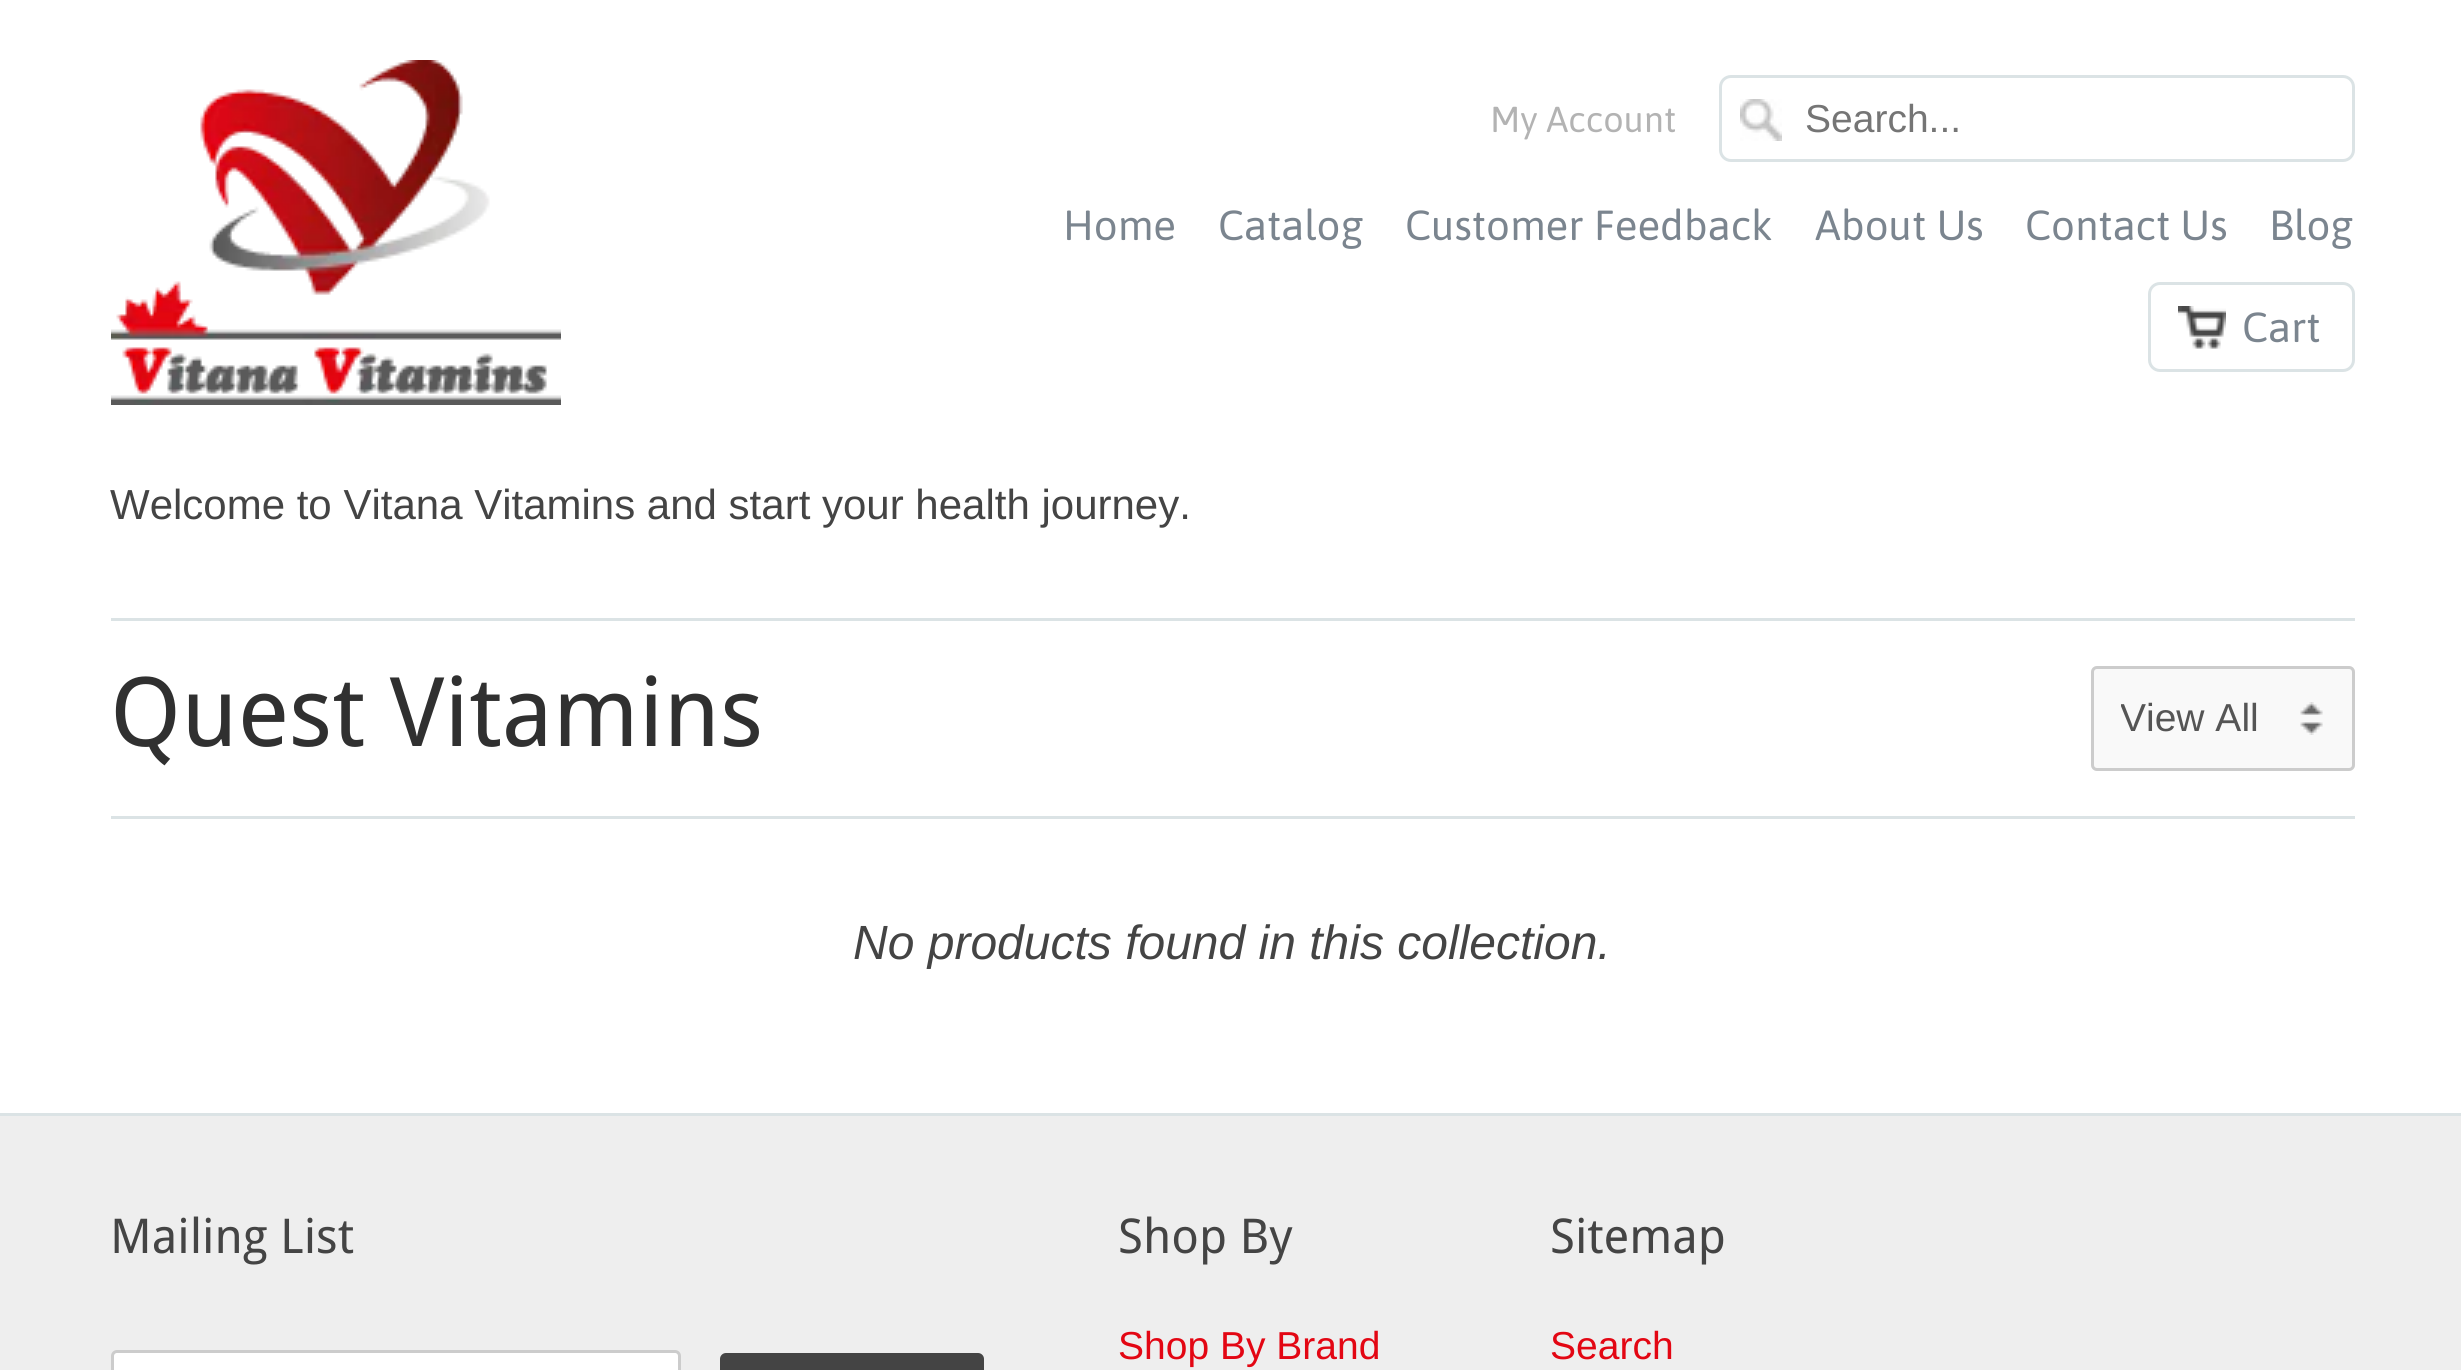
import math
import cairo


def use_color(cr, r, g, b):
  cr.set_source_rgb(r / 255, g / 255, b / 255)

def text(cr, x, y, s, family, size, color, bold=False, italic=False):
  cr.select_font_face(family, cairo.FONT_SLANT_ITALIC if italic else cairo.FONT_SLANT_NORMAL, cairo.FONT_WEIGHT_BOLD if bold else cairo.FONT_WEIGHT_NORMAL)
  cr.set_font_size(size)
  use_color(cr, *color)
  cr.move_to(x, y)
  cr.show_text(s)

def box(cr, x, y, w, h, *color):
  use_color(cr, *color)
  cr.rectangle(x, y, w, h)
  cr.fill()

def round_rect(cr, x, y, w, h, r):
  cr.new_sub_path()
  for i, (u, v) in enumerate([(x + w - r, y + h - r), (x + r, y + h - r), (x + r, y + r), (x + w - r, y + r)]):
    cr.arc(u, v, r, i * math.pi / 2, (i + 1) * math.pi / 2)
  cr.close_path()

def picture(cr, path, x, y, w, h):
  cr.save()
  cr.set_source_surface(cairo.ImageSurface.create_from_png(path), x, y)
  cr.rectangle(x, y, w, h)
  cr.fill()
  cr.restore()

def draw(cr):
  use_color(cr, 255, 255, 255)
  cr.paint()
  box(cr, 111, 618, 2244, 3, 219, 227, 229)
  picture(cr, "img_01.png", 111, 60, 450, 345)
  picture(cr, "img_02.png", 1740, 99, 42, 42)
  round_rect(cr, 1720.5, 76.5, 633, 84, 10.5)
  cr.set_line_width(3)
  cr.stroke()
  picture(cr, "img_03.png", 2178, 306, 48, 43)
  round_rect(cr, 2149.5, 283.5, 204, 87, 10.5)
  cr.stroke()
  box(cr, 111, 816, 2244, 3, 219, 227, 229)
  use_color(cr, 249, 249, 249)
  round_rect(cr, 2091, 666, 264, 105, 6)
  cr.fill()
  picture(cr, "img_04.png", 2300, 702, 23, 33)
  round_rect(cr, 2092.5, 667.5, 261, 102, 4.5)
  use_color(cr, 204, 204, 204)
  cr.stroke()
  box(cr, 0, 1116, 2461, 254, 238, 238, 238)
  box(cr, 0, 1113, 2461, 3, 219, 227, 229)
  use_color(cr, 255, 255, 255)
  round_rect(cr, 112.5, 1351.5, 567, 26, 4.5)
  cr.fill_preserve()
  use_color(cr, 204, 204, 204)
  cr.stroke()
  use_color(cr, 68, 68, 68)
  round_rect(cr, 720, 1353, 264, 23, 6)
  cr.fill()
  text(cr, 1490, 132, "My Account", "Asap", 36, (179, 179, 179))
  text(cr, 1805, 132, "Search...", "Liberation Sans", 39, (117, 117, 117))
  text(cr, 1063, 240, "Home", "Asap", 42, (123, 133, 143))
  text(cr, 1218, 240, "Catalog", "Asap", 42, (123, 133, 143))
  text(cr, 1405, 240, "Customer Feedback", "Asap", 42, (123, 133, 143))
  text(cr, 1815, 240, "About Us", "Asap", 42, (123, 133, 143))
  text(cr, 2025, 240, "Contact Us", "Asap", 42, (123, 133, 143))
  text(cr, 2269, 240, "Blog", "Asap", 42, (123, 133, 143))
  text(cr, 2242, 342, "Cart", "Asap", 42, (123, 133, 143))
  text(cr, 110, 519, "Welcome to Vitana Vitamins and start your health journey.", "Liberation Sans", 42, (68, 68, 68))
  text(cr, 110, 746, "Quest Vitamins", "Droid Sans", 96, (48, 48, 48))
  cr.save()
  cr.rectangle(2121, 696, 141, 45)
  cr.clip()
  text(cr, 2120, 731, "View All", "Liberation Sans", 39, (85, 85, 85))
  cr.restore()
  text(cr, 853, 959, "No products found in this collection.", "Liberation Sans", 48, (68, 68, 68), italic=True)
  text(cr, 110, 1253, "Mailing List", "Droid Sans", 48, (68, 68, 68))
  text(cr, 1118, 1253, "Shop By", "Droid Sans", 48, (68, 68, 68))
  text(cr, 1118, 1359, "Shop By Brand", "Liberation Sans", 39, (227, 6, 19))
  text(cr, 1550, 1253, "Sitemap", "Droid Sans", 48, (68, 68, 68))
  text(cr, 1550, 1359, "Search", "Liberation Sans", 39, (227, 6, 19))


surface = cairo.ImageSurface(cairo.FORMAT_RGB24, 2461, 1370)
cr = cairo.Context(surface)
options = cairo.FontOptions()
options.set_hint_metrics(cairo.HINT_METRICS_OFF)
options.set_hint_style(cairo.HINT_STYLE_NONE)
cr.set_font_options(options)
cr.set_miter_limit(4)
draw(cr)
surface.write_to_png("out.png")
